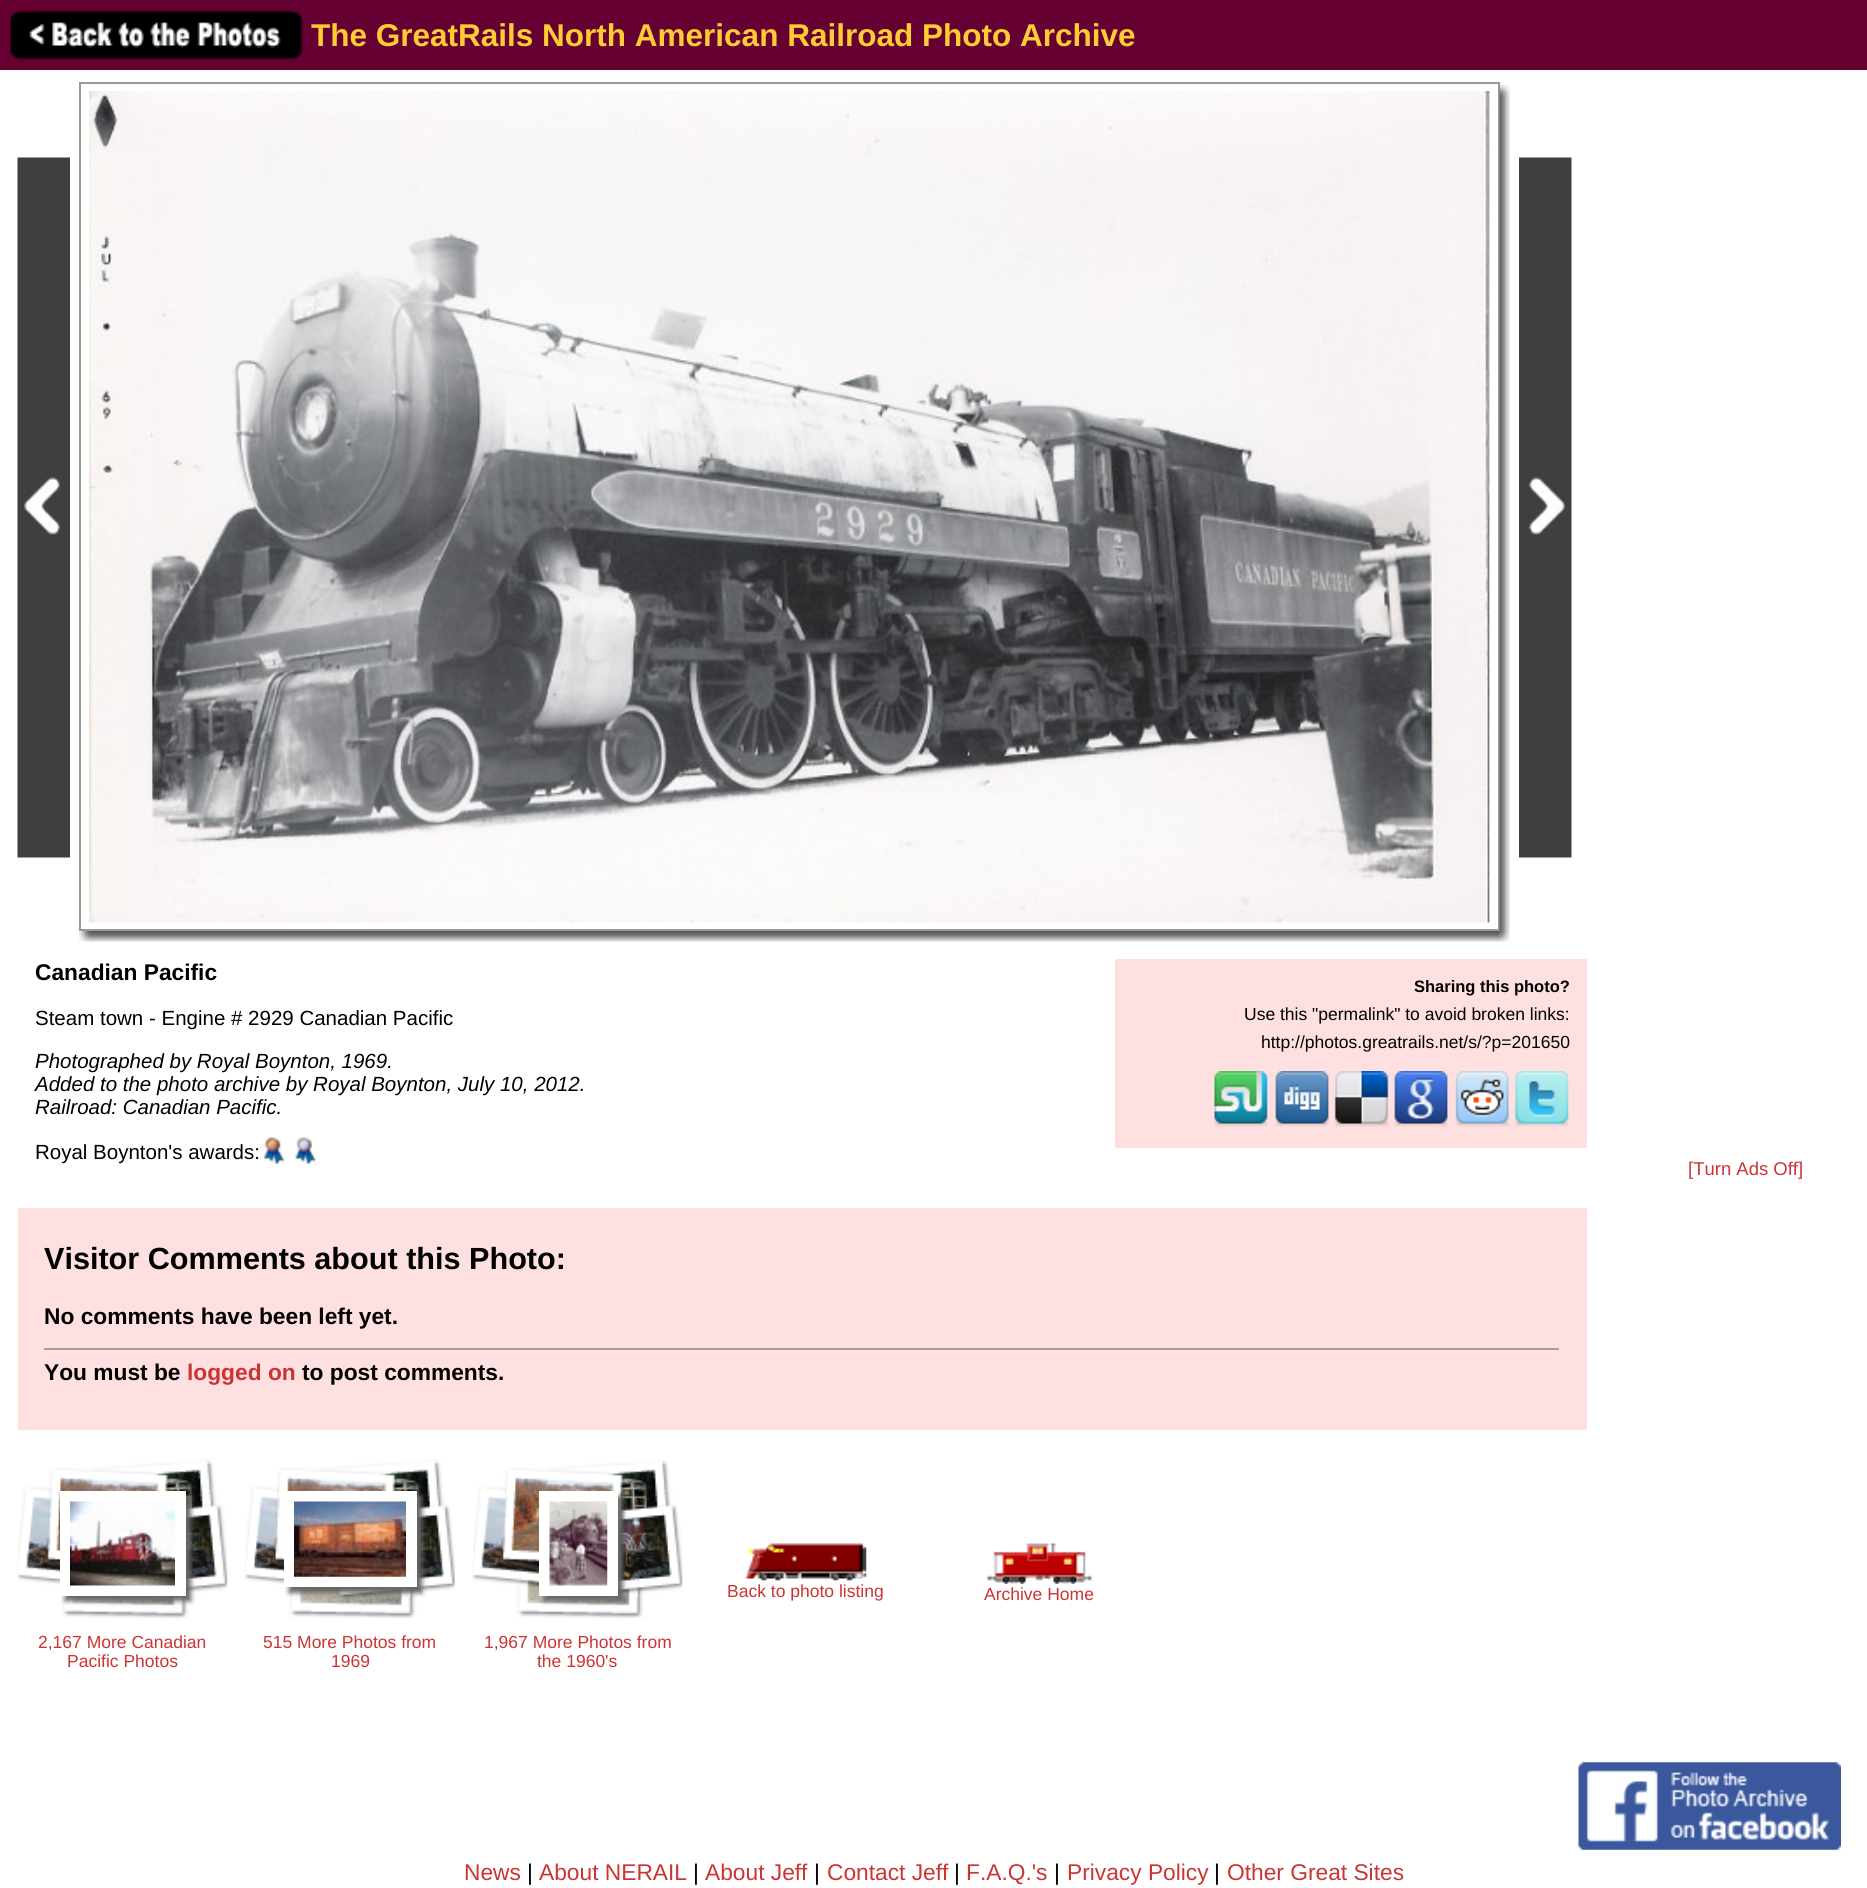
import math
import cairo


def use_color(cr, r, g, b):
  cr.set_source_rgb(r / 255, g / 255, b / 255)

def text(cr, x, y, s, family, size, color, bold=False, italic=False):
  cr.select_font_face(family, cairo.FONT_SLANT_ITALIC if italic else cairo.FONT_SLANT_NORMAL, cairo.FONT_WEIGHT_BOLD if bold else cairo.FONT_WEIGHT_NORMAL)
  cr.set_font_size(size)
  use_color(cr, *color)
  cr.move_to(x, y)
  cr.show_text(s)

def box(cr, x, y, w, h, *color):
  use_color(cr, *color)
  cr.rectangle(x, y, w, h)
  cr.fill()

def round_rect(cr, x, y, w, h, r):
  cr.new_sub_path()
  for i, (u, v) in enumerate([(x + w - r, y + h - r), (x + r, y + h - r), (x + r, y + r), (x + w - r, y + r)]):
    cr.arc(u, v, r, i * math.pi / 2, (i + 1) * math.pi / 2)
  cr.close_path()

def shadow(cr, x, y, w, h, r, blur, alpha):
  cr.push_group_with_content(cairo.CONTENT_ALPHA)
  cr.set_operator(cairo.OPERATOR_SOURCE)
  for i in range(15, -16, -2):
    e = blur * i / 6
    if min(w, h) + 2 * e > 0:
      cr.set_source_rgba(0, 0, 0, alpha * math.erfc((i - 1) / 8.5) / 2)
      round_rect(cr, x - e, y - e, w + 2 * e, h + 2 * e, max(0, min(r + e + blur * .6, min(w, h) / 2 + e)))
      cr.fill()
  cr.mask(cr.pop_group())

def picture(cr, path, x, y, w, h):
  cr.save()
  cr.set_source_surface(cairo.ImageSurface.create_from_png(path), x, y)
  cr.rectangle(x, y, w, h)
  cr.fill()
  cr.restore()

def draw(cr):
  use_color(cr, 255, 255, 255)
  cr.paint()
  box(cr, 0, 0, 1867, 70, 102, 0, 51)
  picture(cr, "img_01.png", 10, 10, 294, 50)
  picture(cr, "img_02.png", 17, 157, 53, 701)
  cr.rectangle(80, 83, 1419, 847)
  use_color(cr, 154, 154, 154)
  cr.stroke()
  picture(cr, "img_03.png", 89, 91, 1401, 832)
  picture(cr, "img_04.png", 89, 91, 1401, 832)
  picture(cr, "img_05.png", 1499, 83, 11, 848)
  picture(cr, "img_06.png", 1519, 157, 53, 701)
  picture(cr, "img_07.png", 79, 931, 1421, 11)
  picture(cr, "img_08.png", 1499, 931, 11, 11)
  picture(cr, "img_09.png", 263, 1137, 21, 27)
  picture(cr, "img_10.png", 295, 1137, 21, 27)
  box(cr, 1115, 959, 472, 189, 255, 224, 224)
  picture(cr, "img_11.png", 1214, 1071, 54, 56)
  picture(cr, "img_12.png", 1275, 1071, 54, 56)
  picture(cr, "img_13.png", 1334, 1071, 55, 56)
  picture(cr, "img_14.png", 1394, 1071, 54, 56)
  picture(cr, "img_15.png", 1455, 1071, 54, 56)
  picture(cr, "img_16.png", 1515, 1071, 54, 56)
  box(cr, 18, 1208, 1569, 222, 255, 224, 224)
  box(cr, 44, 1348, 1517, 2, 159, 159, 159)
  box(cr, 1559, 1348, 2, 2, 238, 238, 238)
  picture(cr, "img_17.png", 745, 1543, 122, 38)
  picture(cr, "img_18.png", 987, 1543, 105, 41)
  picture(cr, "img_19.png", 17, 1459, 211, 160)
  use_color(cr, 102, 102, 102)
  shadow(cr, 65, 1496, 126, 105, 0, 2.5, 1)
  box(cr, 60, 1491, 126, 105, 255, 255, 255)
  picture(cr, "img_20.png", 70, 1501, 105, 85)
  picture(cr, "img_21.png", 245, 1459, 210, 160)
  use_color(cr, 102, 102, 102)
  shadow(cr, 289, 1496, 133, 97, 0, 2.5, 1)
  box(cr, 284, 1491, 133, 96, 255, 255, 255)
  picture(cr, "img_22.png", 294, 1501, 112, 76)
  picture(cr, "img_23.png", 472, 1459, 211, 160)
  use_color(cr, 102, 102, 102)
  shadow(cr, 544, 1496, 79, 105, 0, 2.5, 1)
  box(cr, 539, 1491, 79, 105, 255, 255, 255)
  picture(cr, "img_24.png", 549, 1501, 59, 85)
  picture(cr, "img_25.png", 1578, 1762, 263, 88)
  text(cr, 311, 46, "The GreatRails North American Railroad Photo Archive", "Liberation Sans", 31.5, (255, 204, 51), bold=True)
  text(cr, 35, 980, "Canadian Pacific", "Liberation Sans", 22.75, (0, 0, 0), bold=True)
  text(cr, 35, 1025, "Steam town - Engine # 2929 Canadian Pacific", "Liberation Sans", 20.5, (0, 0, 0))
  text(cr, 35, 1068, "Photographed by Royal Boynton, 1969.", "Liberation Sans", 20.5, (0, 0, 0), italic=True)
  text(cr, 35, 1091, "Added to the photo archive by Royal Boynton, July 10, 2012.", "Liberation Sans", 20.5, (0, 0, 0), italic=True)
  text(cr, 35, 1114, "Railroad: Canadian Pacific.", "Liberation Sans", 20.5, (0, 0, 0), italic=True)
  text(cr, 35, 1159, "Royal Boynton's awards:", "Liberation Sans", 20.5, (0, 0, 0))
  text(cr, 1414, 992, "Sharing this photo?", "Liberation Sans", 16.5, (0, 0, 0), bold=True)
  text(cr, 1244, 1020, "Use this \"permalink\" to avoid broken links:", "Liberation Sans", 17.5, (0, 0, 0))
  text(cr, 1261, 1048, "http://photos.greatrails.net/s/?p=201650", "Liberation Sans", 17.5, (0, 0, 0))
  text(cr, 1688, 1175, "[Turn Ads Off]", "Liberation Sans", 18.5, (204, 51, 51))
  text(cr, 44, 1269, "Visitor Comments about this Photo:", "Liberation Sans", 30.6, (0, 0, 0), bold=True)
  text(cr, 44, 1324, "No comments have been left yet.", "Liberation Sans", 22.75, (0, 0, 0), bold=True)
  text(cr, 44, 1380, "You must be", "Liberation Sans", 22.75, (0, 0, 0), bold=True)
  text(cr, 187, 1380, "logged on", "Liberation Sans", 22.75, (204, 51, 51), bold=True)
  text(cr, 302, 1380, "to post comments.", "Liberation Sans", 22.75, (0, 0, 0), bold=True)
  text(cr, 727, 1597, "Back to photo listing", "Liberation Sans", 17.5, (204, 51, 51))
  text(cr, 984, 1600, "Archive Home", "Liberation Sans", 17.5, (204, 51, 51))
  text(cr, 38, 1648, "2,167 More Canadian", "Liberation Sans", 17.5, (204, 51, 51))
  text(cr, 67, 1667, "Pacific Photos", "Liberation Sans", 17.5, (204, 51, 51))
  text(cr, 263, 1648, "515 More Photos from", "Liberation Sans", 17.5, (204, 51, 51))
  text(cr, 331, 1667, "1969", "Liberation Sans", 17.5, (204, 51, 51))
  text(cr, 484, 1648, "1,967 More Photos from", "Liberation Sans", 17.5, (204, 51, 51))
  text(cr, 537, 1667, "the 1960's", "Liberation Sans", 17.5, (204, 51, 51))
  text(cr, 464, 1880, "News", "Liberation Sans", 22.75, (204, 51, 51))
  text(cr, 527, 1880, "|", "Liberation Sans", 22.75, (0, 0, 0))
  text(cr, 539, 1880, "About NERAIL", "Liberation Sans", 22.75, (204, 51, 51))
  text(cr, 693, 1880, "|", "Liberation Sans", 22.75, (0, 0, 0))
  text(cr, 705, 1880, "About Jeff", "Liberation Sans", 22.75, (204, 51, 51))
  text(cr, 814, 1880, "|", "Liberation Sans", 22.75, (0, 0, 0))
  text(cr, 827, 1880, "Contact Jeff", "Liberation Sans", 22.75, (204, 51, 51))
  text(cr, 954, 1880, "|", "Liberation Sans", 22.75, (0, 0, 0))
  text(cr, 966, 1880, "F.A.Q.'s", "Liberation Sans", 22.75, (204, 51, 51))
  text(cr, 1054, 1880, "|", "Liberation Sans", 22.75, (0, 0, 0))
  text(cr, 1067, 1880, "Privacy Policy", "Liberation Sans", 22.75, (204, 51, 51))
  text(cr, 1214, 1880, "|", "Liberation Sans", 22.75, (0, 0, 0))
  text(cr, 1227, 1880, "Other Great Sites", "Liberation Sans", 22.75, (204, 51, 51))


surface = cairo.ImageSurface(cairo.FORMAT_RGB24, 1867, 1888)
cr = cairo.Context(surface)
options = cairo.FontOptions()
options.set_hint_metrics(cairo.HINT_METRICS_OFF)
options.set_hint_style(cairo.HINT_STYLE_NONE)
cr.set_font_options(options)
cr.set_miter_limit(4)
draw(cr)
surface.write_to_png("out.png")
